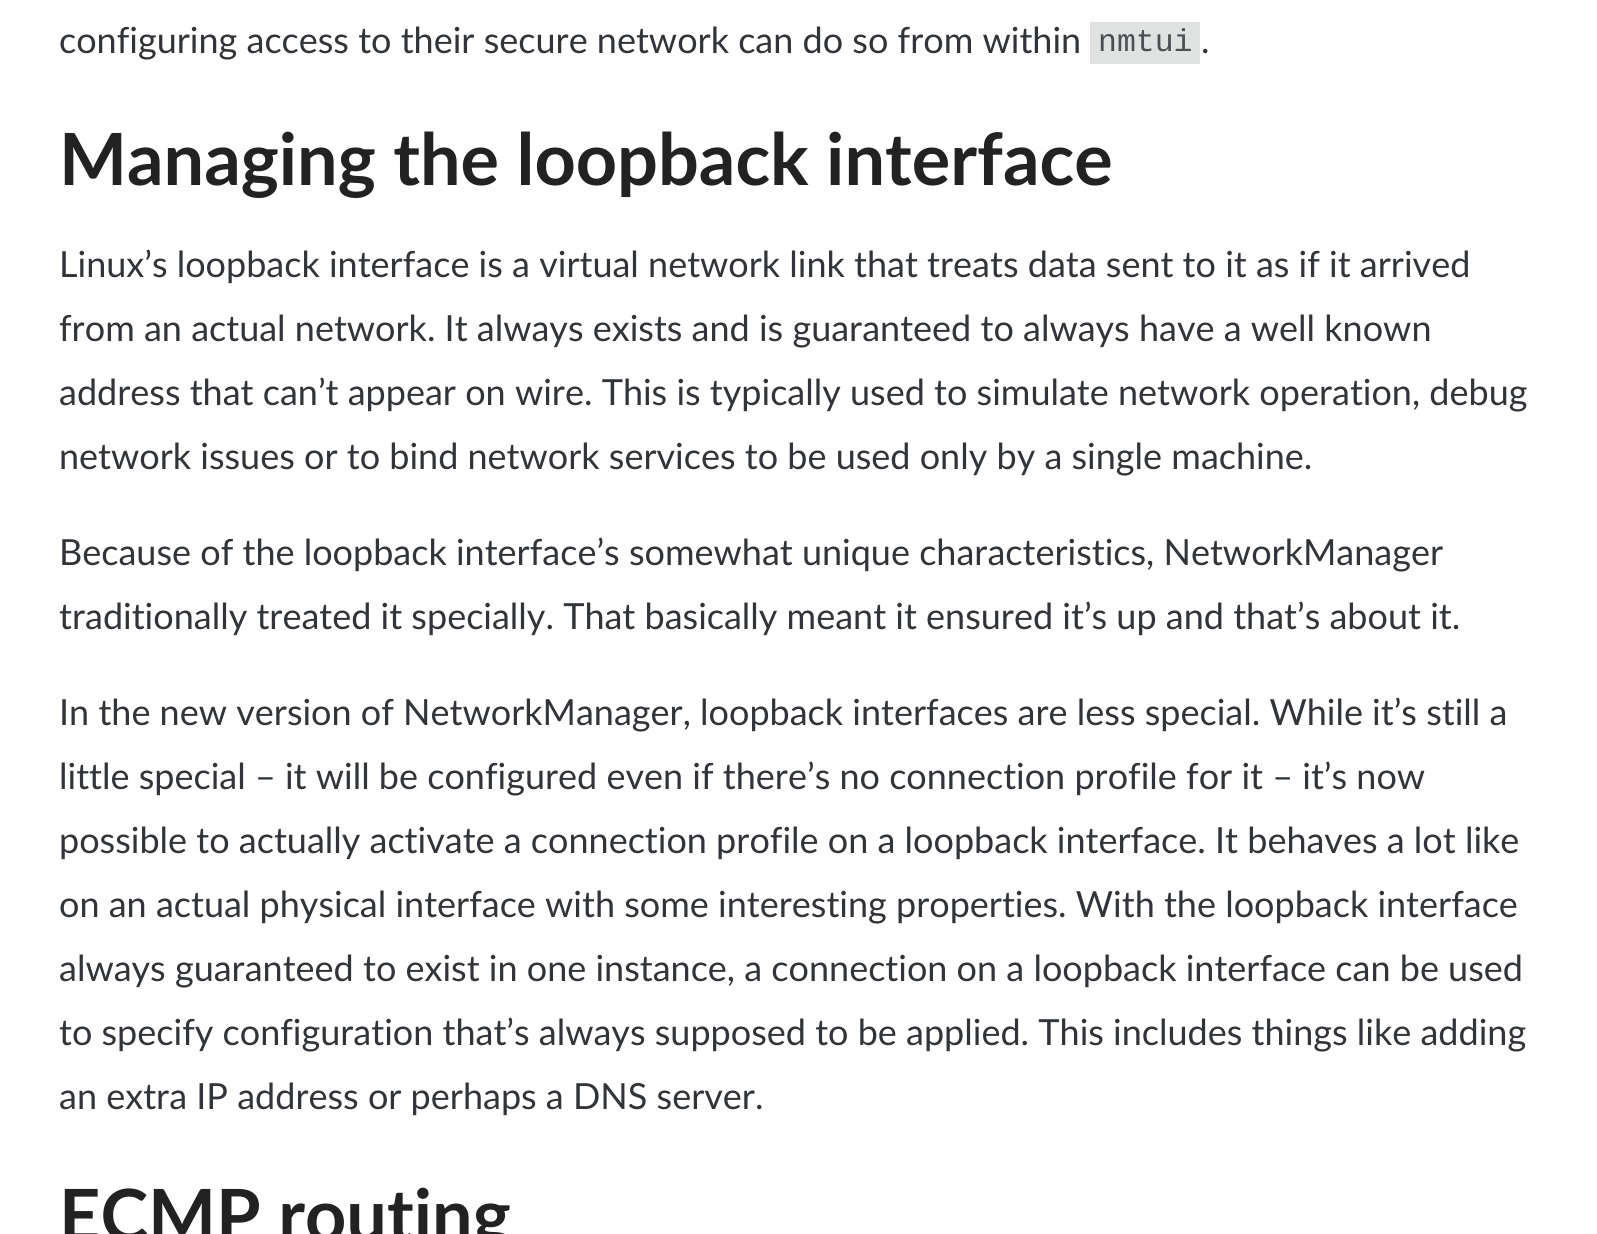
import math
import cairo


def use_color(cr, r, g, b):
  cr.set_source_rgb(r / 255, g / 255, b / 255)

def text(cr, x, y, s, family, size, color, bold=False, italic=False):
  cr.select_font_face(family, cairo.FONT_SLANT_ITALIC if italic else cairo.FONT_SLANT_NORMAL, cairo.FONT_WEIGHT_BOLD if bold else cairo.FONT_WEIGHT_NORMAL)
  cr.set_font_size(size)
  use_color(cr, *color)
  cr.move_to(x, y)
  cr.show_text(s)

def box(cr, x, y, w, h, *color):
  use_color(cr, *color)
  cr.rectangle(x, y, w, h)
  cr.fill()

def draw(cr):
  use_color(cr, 255, 255, 255)
  cr.paint()
  box(cr, 1090, 22, 110, 42, 224, 225, 225)
  text(cr, 59, 53, "configuring access to their secure network can do so from within", "Lato", 36, (49, 52, 57))
  text(cr, 1098, 51, "nmtui", "Liberation Mono", 31.5, (75, 78, 82))
  text(cr, 1201, 53, ".", "Lato", 36, (49, 52, 57))
  text(cr, 59, 185, "Managing the loopback interface", "Lato", 72, (34, 34, 34), bold=True)
  text(cr, 59, 277, "Linux’s loopback interface is a virtual network link that treats data sent to it as if it arrived", "Lato", 36, (49, 52, 57))
  text(cr, 59, 341, "from an actual network. It always exists and is guaranteed to always have a well known", "Lato", 36, (49, 52, 57))
  text(cr, 59, 405, "address that can’t appear on wire. This is typically used to simulate network operation, debug", "Lato", 36, (49, 52, 57))
  text(cr, 59, 469, "network issues or to bind network services to be used only by a single machine.", "Lato", 36, (49, 52, 57))
  text(cr, 59, 565, "Because of the loopback interface’s somewhat unique characteristics, NetworkManager", "Lato", 36, (49, 52, 57))
  text(cr, 59, 629, "traditionally treated it specially. That basically meant it ensured it’s up and that’s about it.", "Lato", 36, (49, 52, 57))
  text(cr, 59, 725, "In the new version of NetworkManager, loopback interfaces are less special. While it’s still a", "Lato", 36, (49, 52, 57))
  text(cr, 59, 789, "little special – it will be configured even if there’s no connection profile for it – it’s now", "Lato", 36, (49, 52, 57))
  text(cr, 59, 853, "possible to actually activate a connection profile on a loopback interface. It behaves a lot like", "Lato", 36, (49, 52, 57))
  text(cr, 59, 917, "on an actual physical interface with some interesting properties. With the loopback interface", "Lato", 36, (49, 52, 57))
  text(cr, 59, 981, "always guaranteed to exist in one instance, a connection on a loopback interface can be used", "Lato", 36, (49, 52, 57))
  text(cr, 59, 1045, "to specify configuration that’s always supposed to be applied. This includes things like adding", "Lato", 36, (49, 52, 57))
  text(cr, 59, 1109, "an extra IP address or perhaps a DNS server.", "Lato", 36, (49, 52, 57))
  text(cr, 59, 1241, "ECMP routing", "Lato", 72, (34, 34, 34), bold=True)


surface = cairo.ImageSurface(cairo.FORMAT_RGB24, 1597, 1234)
cr = cairo.Context(surface)
options = cairo.FontOptions()
options.set_hint_metrics(cairo.HINT_METRICS_OFF)
options.set_hint_style(cairo.HINT_STYLE_NONE)
cr.set_font_options(options)
cr.set_miter_limit(4)
draw(cr)
surface.write_to_png("out.png")
